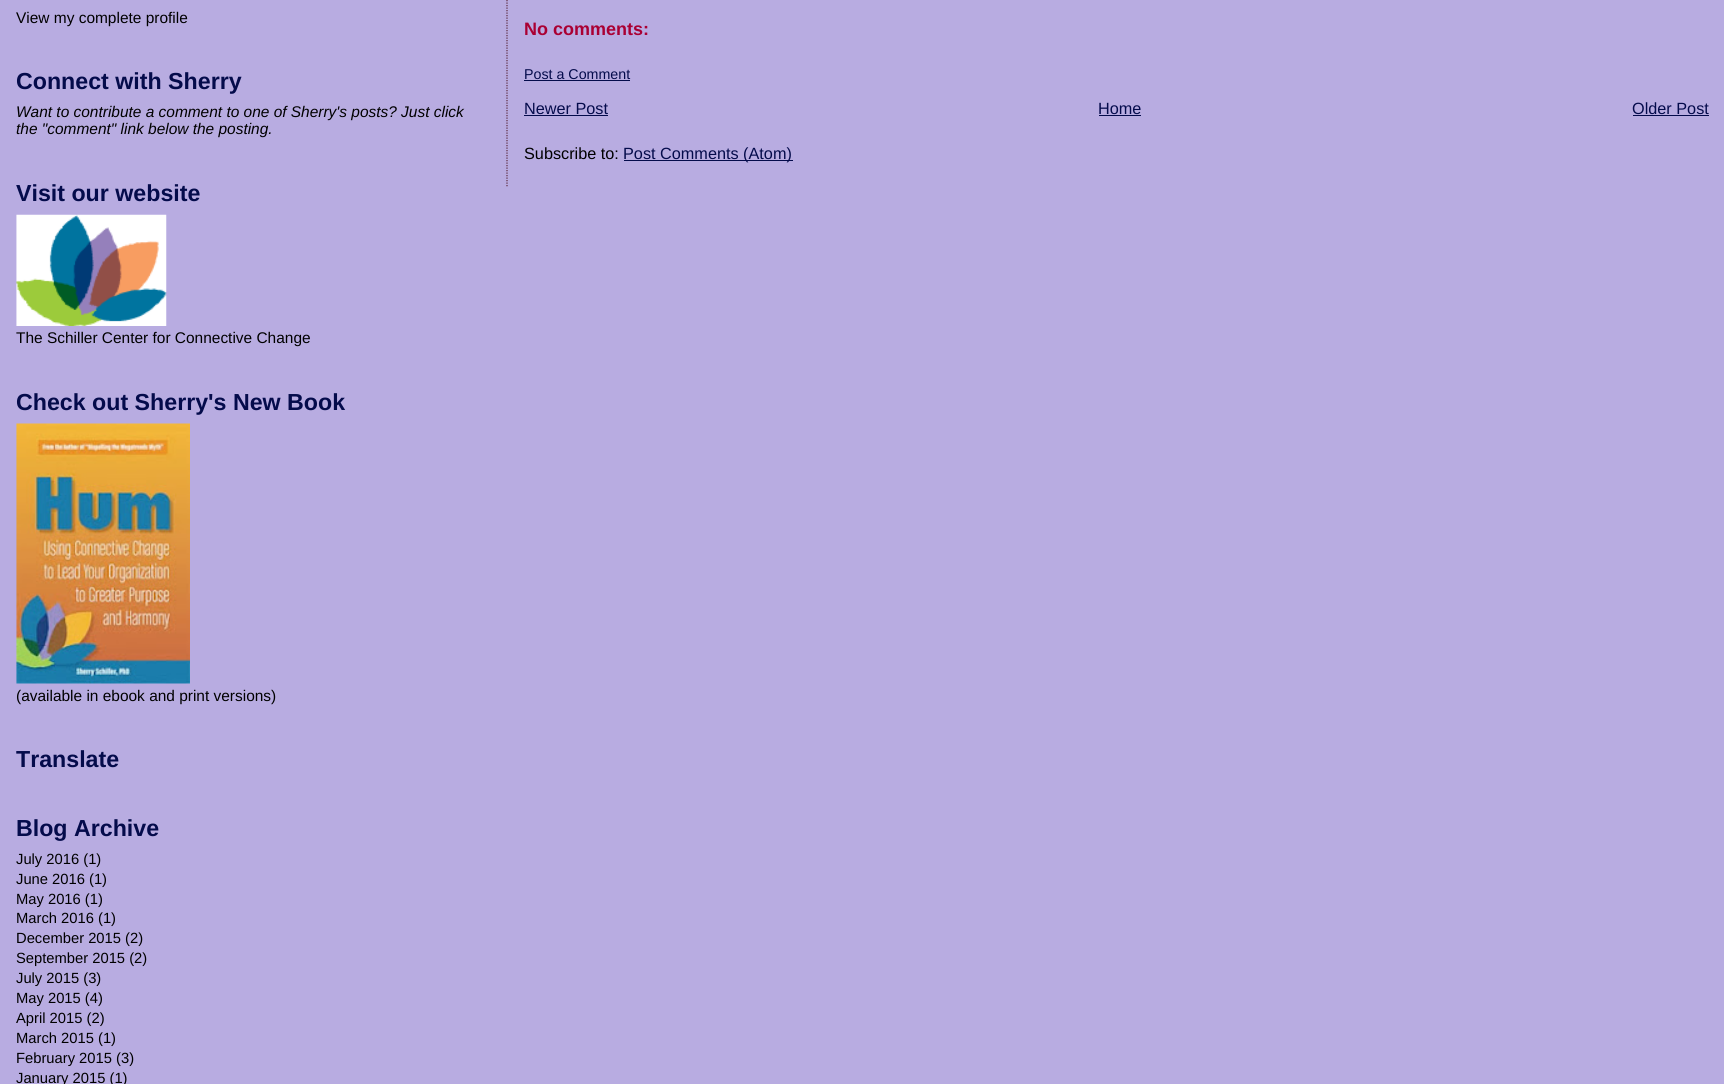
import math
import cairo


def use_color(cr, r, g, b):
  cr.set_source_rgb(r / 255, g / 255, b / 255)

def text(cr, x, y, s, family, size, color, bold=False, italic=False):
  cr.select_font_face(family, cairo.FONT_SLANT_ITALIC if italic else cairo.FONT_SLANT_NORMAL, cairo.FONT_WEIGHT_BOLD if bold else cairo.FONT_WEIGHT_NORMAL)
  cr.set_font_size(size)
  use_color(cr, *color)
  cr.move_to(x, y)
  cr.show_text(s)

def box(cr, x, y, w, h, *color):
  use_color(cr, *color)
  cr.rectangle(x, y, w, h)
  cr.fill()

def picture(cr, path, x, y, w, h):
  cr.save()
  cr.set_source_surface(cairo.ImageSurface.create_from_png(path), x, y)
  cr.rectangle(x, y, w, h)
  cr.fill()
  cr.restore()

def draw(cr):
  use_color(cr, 184, 172, 225)
  cr.paint()
  picture(cr, "img_01.png", 16, 214, 151, 112)
  picture(cr, "img_02.png", 16, 423, 174, 261)
  cr.new_path()
  cr.move_to(507, -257.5)
  cr.line_to(507, 187.5)
  use_color(cr, 92, 43, 64)
  cr.set_line_width(1.2)
  cr.set_dash([1.25, 1.25])
  cr.stroke()
  box(cr, 524, 80, 106, 1, 4, 11, 75)
  box(cr, 524, 115, 84, 1, 4, 11, 75)
  box(cr, 1099, 115, 42, 1, 4, 11, 75)
  box(cr, 1633, 115, 76, 1, 4, 11, 75)
  box(cr, 624, 160, 169, 1, 4, 11, 75)
  text(cr, 16, 23, "View my complete profile", "Liberation Sans", 15.45, (0, 0, 0))
  text(cr, 16, 89, "Connect with Sherry", "Liberation Sans", 23.2, (4, 11, 75), bold=True)
  text(cr, 16, 117, "Want to contribute a comment to one of Sherry's posts? Just click", "Liberation Sans", 15.45, (0, 0, 0), italic=True)
  text(cr, 16, 134, "the \"comment\" link below the posting.", "Liberation Sans", 15.45, (0, 0, 0), italic=True)
  text(cr, 16, 201, "Visit our website", "Liberation Sans", 23.2, (4, 11, 75), bold=True)
  text(cr, 16, 343, "The Schiller Center for Connective Change", "Liberation Sans", 15.45, (0, 0, 0))
  text(cr, 16, 410, "Check out Sherry's New Book", "Liberation Sans", 23.2, (4, 11, 75), bold=True)
  text(cr, 16, 701, "(available in ebook and print versions)", "Liberation Sans", 15.45, (0, 0, 0))
  text(cr, 16, 767, "Translate", "Liberation Sans", 23.2, (4, 11, 75), bold=True)
  text(cr, 16, 836, "Blog Archive", "Liberation Sans", 23.2, (4, 11, 75), bold=True)
  text(cr, 16, 864, "July 2016 (1)", "Liberation Sans", 14.75, (0, 0, 0))
  text(cr, 16, 884, "June 2016 (1)", "Liberation Sans", 14.75, (0, 0, 0))
  text(cr, 16, 904, "May 2016 (1)", "Liberation Sans", 14.75, (0, 0, 0))
  text(cr, 16, 923, "March 2016 (1)", "Liberation Sans", 14.75, (0, 0, 0))
  text(cr, 16, 943, "December 2015 (2)", "Liberation Sans", 14.75, (0, 0, 0))
  text(cr, 16, 963, "September 2015 (2)", "Liberation Sans", 14.75, (0, 0, 0))
  text(cr, 16, 983, "July 2015 (3)", "Liberation Sans", 14.75, (0, 0, 0))
  text(cr, 16, 1003, "May 2015 (4)", "Liberation Sans", 14.75, (0, 0, 0))
  text(cr, 16, 1023, "April 2015 (2)", "Liberation Sans", 14.75, (0, 0, 0))
  text(cr, 16, 1043, "March 2015 (1)", "Liberation Sans", 14.75, (0, 0, 0))
  text(cr, 16, 1063, "February 2015 (3)", "Liberation Sans", 14.75, (0, 0, 0))
  text(cr, 16, 1083, "January 2015 (1)", "Liberation Sans", 14.75, (0, 0, 0))
  text(cr, 524, 35, "No comments:", "Liberation Sans", 18, (170, 0, 51), bold=True)
  text(cr, 524, 79, "Post a Comment", "Liberation Sans", 14.25, (4, 11, 75))
  text(cr, 524, 114, "Newer Post", "Liberation Sans", 16.25, (4, 11, 75))
  text(cr, 1098, 114, "Home", "Liberation Sans", 16.25, (4, 11, 75))
  text(cr, 1632, 114, "Older Post", "Liberation Sans", 16.25, (4, 11, 75))
  text(cr, 524, 159, "Subscribe to:", "Liberation Sans", 16.25, (0, 0, 0))
  text(cr, 623, 159, "Post Comments (Atom)", "Liberation Sans", 16.25, (4, 11, 75))


surface = cairo.ImageSurface(cairo.FORMAT_RGB24, 1724, 1084)
cr = cairo.Context(surface)
options = cairo.FontOptions()
options.set_hint_metrics(cairo.HINT_METRICS_OFF)
options.set_hint_style(cairo.HINT_STYLE_NONE)
cr.set_font_options(options)
cr.set_miter_limit(4)
draw(cr)
surface.write_to_png("out.png")
